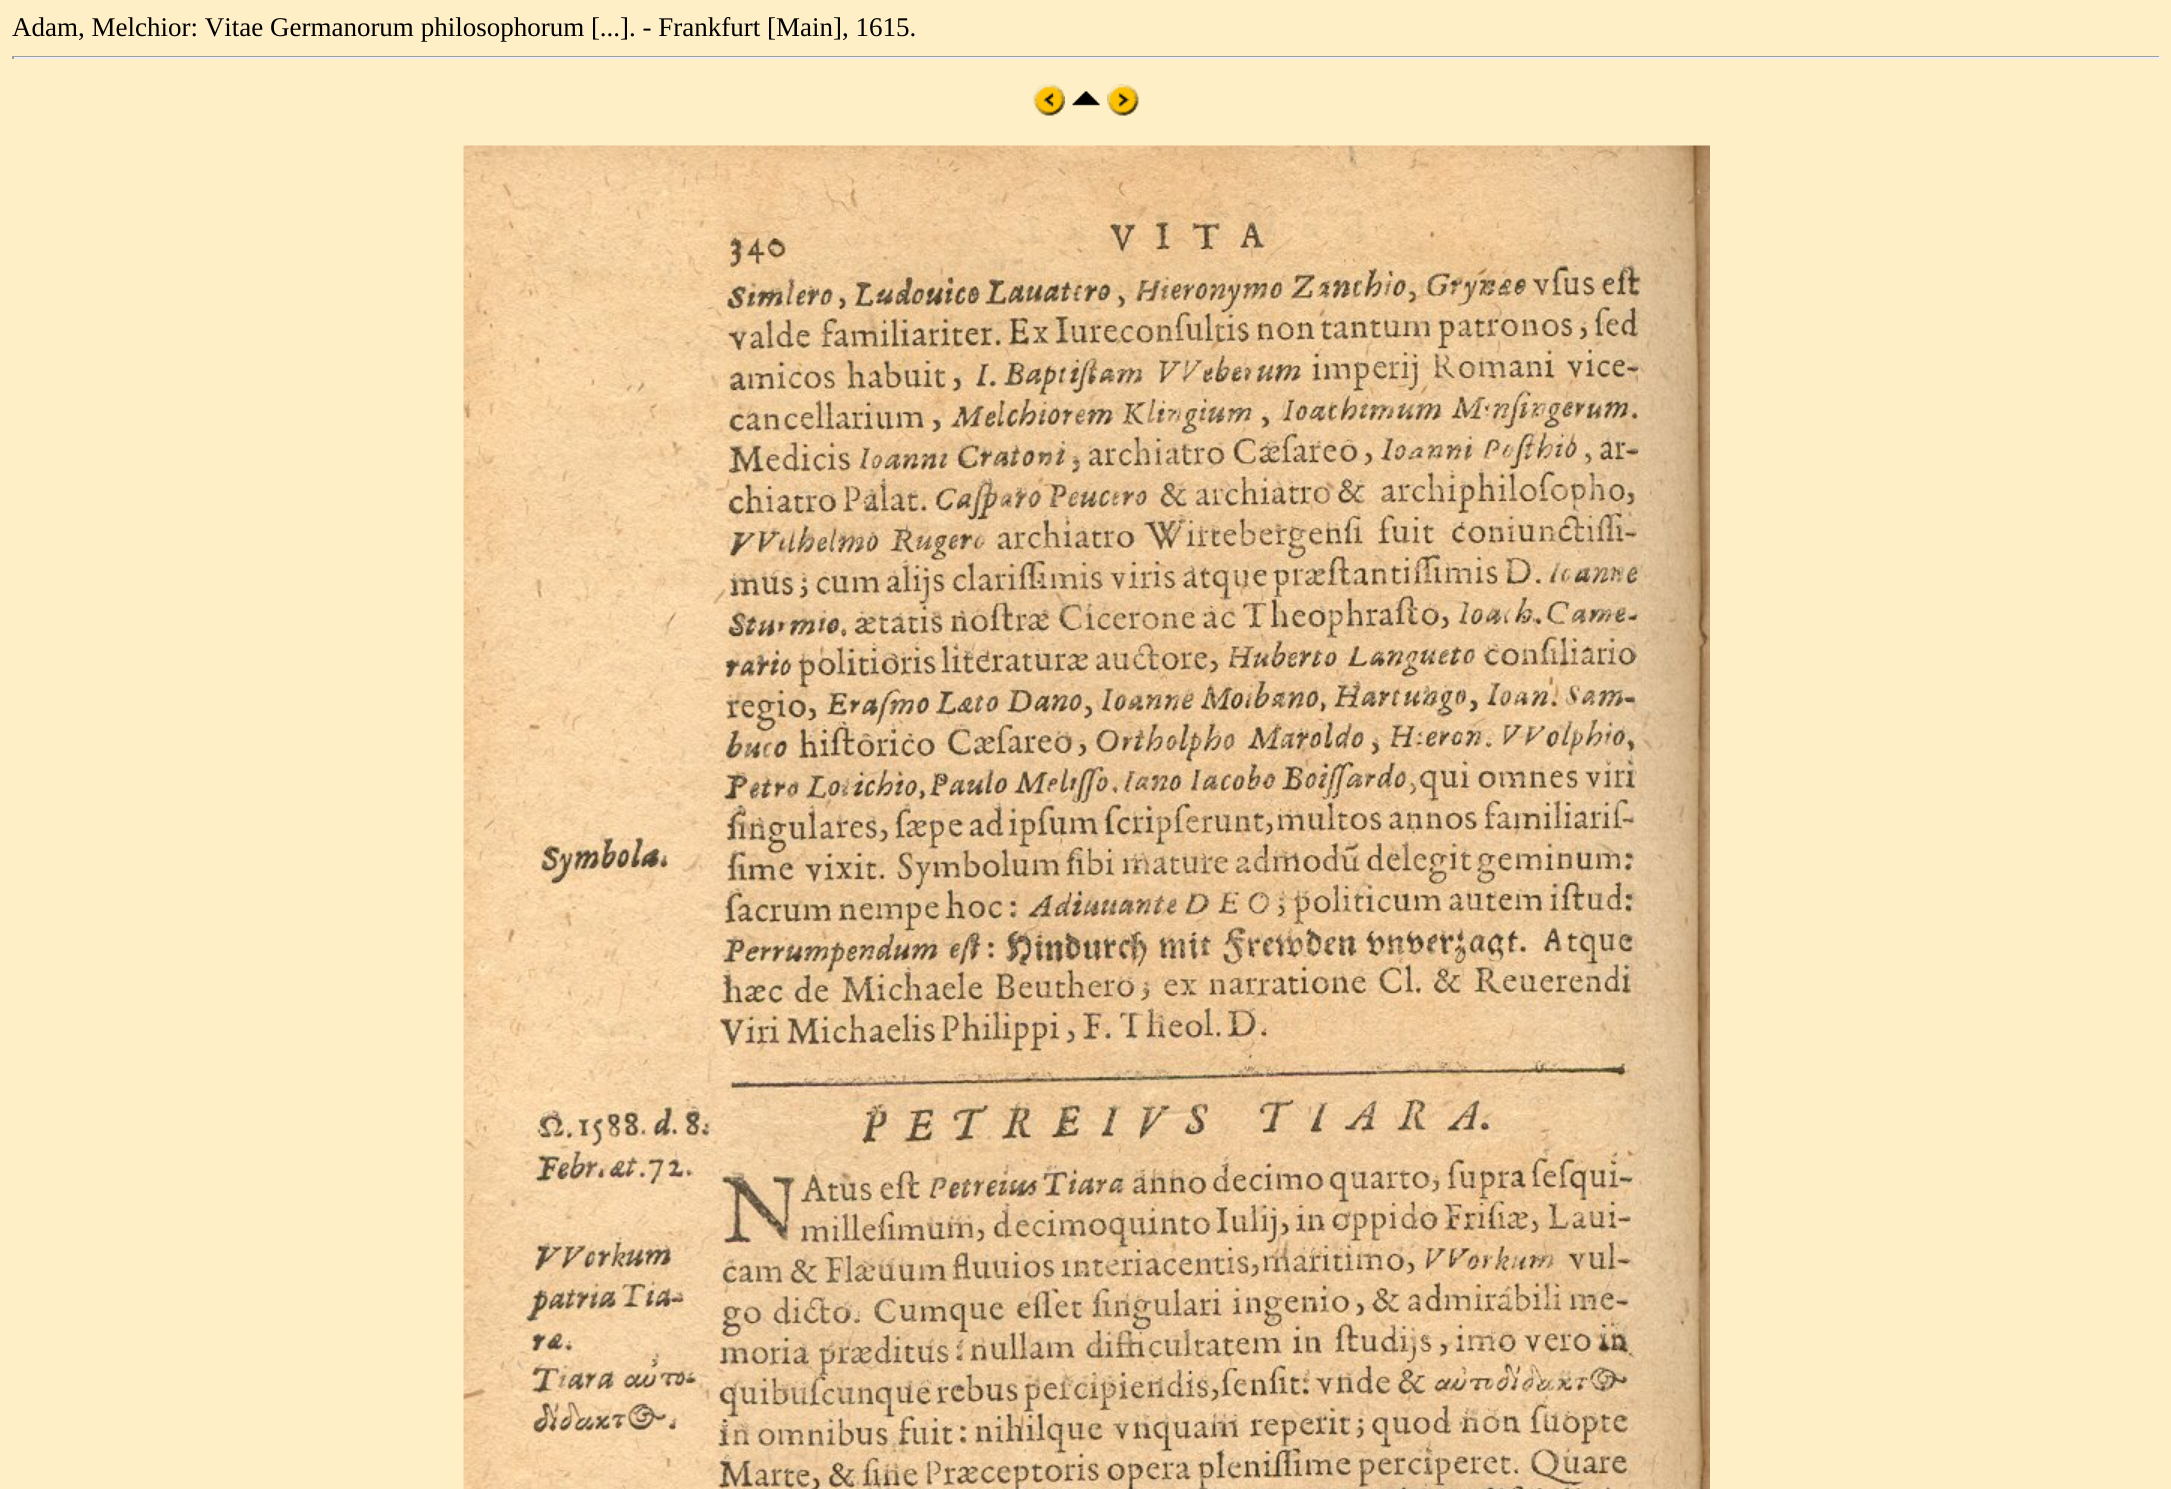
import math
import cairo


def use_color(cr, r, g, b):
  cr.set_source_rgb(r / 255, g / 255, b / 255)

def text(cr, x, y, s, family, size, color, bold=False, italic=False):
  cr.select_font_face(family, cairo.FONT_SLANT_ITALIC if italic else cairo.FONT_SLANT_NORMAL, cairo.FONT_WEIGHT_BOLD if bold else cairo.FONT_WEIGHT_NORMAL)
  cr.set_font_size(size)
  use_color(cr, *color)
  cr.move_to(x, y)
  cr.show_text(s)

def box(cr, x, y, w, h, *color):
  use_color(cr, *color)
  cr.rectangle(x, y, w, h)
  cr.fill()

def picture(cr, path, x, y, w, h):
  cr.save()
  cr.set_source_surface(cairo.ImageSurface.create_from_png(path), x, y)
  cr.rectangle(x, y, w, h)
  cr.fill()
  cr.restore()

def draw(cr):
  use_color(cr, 255, 239, 198)
  cr.paint()
  box(cr, 12, 56, 2148, 1, 159, 159, 159)
  box(cr, 2159, 56, 2, 3, 238, 238, 238)
  box(cr, 12, 57, 2148, 2, 238, 238, 238)
  box(cr, 12, 56, 2, 3, 159, 159, 159)
  picture(cr, "img_01.png", 1033, 84, 32, 32)
  picture(cr, "img_02.png", 1072, 91, 28, 15)
  picture(cr, "img_03.png", 1107, 84, 32, 32)
  picture(cr, "img_04.png", 463, 145, 1247, 1344)
  text(cr, 12, 36, "Adam, Melchior: Vitae Germanorum philosophorum [...]. - Frankfurt [Main], 1615.", "Liberation Serif", 27, (0, 0, 0))


surface = cairo.ImageSurface(cairo.FORMAT_RGB24, 2171, 1489)
cr = cairo.Context(surface)
options = cairo.FontOptions()
options.set_hint_metrics(cairo.HINT_METRICS_OFF)
options.set_hint_style(cairo.HINT_STYLE_NONE)
cr.set_font_options(options)
cr.set_miter_limit(4)
draw(cr)
surface.write_to_png("out.png")
